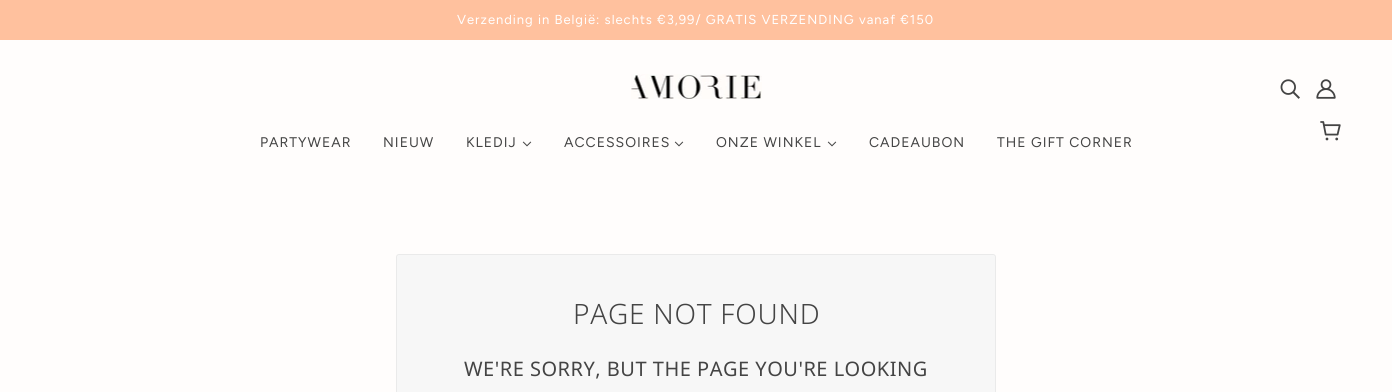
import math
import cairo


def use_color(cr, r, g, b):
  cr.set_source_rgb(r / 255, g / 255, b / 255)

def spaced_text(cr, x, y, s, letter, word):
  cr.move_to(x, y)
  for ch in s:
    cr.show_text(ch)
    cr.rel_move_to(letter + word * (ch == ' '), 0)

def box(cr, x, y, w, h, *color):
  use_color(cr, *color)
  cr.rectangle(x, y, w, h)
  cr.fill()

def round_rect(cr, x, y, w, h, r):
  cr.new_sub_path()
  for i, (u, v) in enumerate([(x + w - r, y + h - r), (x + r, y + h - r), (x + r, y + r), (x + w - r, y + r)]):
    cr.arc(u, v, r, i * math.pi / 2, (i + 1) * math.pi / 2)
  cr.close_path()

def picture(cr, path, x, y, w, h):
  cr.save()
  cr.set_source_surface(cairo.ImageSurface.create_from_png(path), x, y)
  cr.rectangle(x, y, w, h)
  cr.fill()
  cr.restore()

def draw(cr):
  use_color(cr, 255, 253, 252)
  cr.paint()
  box(cr, 0, 0, 1392, 40, 255, 193, 158)
  picture(cr, "img_01.png", 631, 74, 131, 25)
  picture(cr, "img_02.png", 1280, 79, 20, 20)
  picture(cr, "img_03.png", 1316, 79, 20, 20)
  picture(cr, "img_04.png", 1320, 121, 21, 20)
  picture(cr, "img_05.png", 522, 141, 10, 6)
  picture(cr, "img_05.png", 674, 141, 10, 6)
  picture(cr, "img_05.png", 827, 141, 10, 6)
  use_color(cr, 247, 247, 247)
  round_rect(cr, 396.5, 254.5, 599, 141, 2.5)
  cr.fill_preserve()
  use_color(cr, 234, 234, 234)
  cr.set_line_width(1)
  cr.stroke()
  cr.select_font_face("Figtree")
  cr.set_font_size(13)
  use_color(cr, 255, 255, 255)
  spaced_text(cr, 457, 24, "Verzending in België: slechts €3,99/ GRATIS VERZENDING vanaf €150", 1, 0)
  cr.set_font_size(14)
  use_color(cr, 68, 68, 68)
  spaced_text(cr, 260, 147, "PARTYWEAR", 1, 0)
  spaced_text(cr, 383, 147, "NIEUW", 1, 0)
  spaced_text(cr, 466, 147, "KLEDIJ", 1, 0)
  spaced_text(cr, 564, 147, "ACCESSOIRES", 1, 0)
  spaced_text(cr, 716, 147, "ONZE WINKEL", 1, 0)
  spaced_text(cr, 869, 147, "CADEAUBON", 1, 0)
  spaced_text(cr, 997, 147, "THE GIFT CORNER", 1, 0)
  cr.select_font_face("Noto Sans Light")
  cr.set_font_size(28)
  spaced_text(cr, 573, 324, "PAGE NOT FOUND", 0.75, 0)
  cr.select_font_face("Noto Sans")
  cr.set_font_size(20)
  spaced_text(cr, 464, 376, "WE'RE SORRY, BUT THE PAGE YOU'RE LOOKING", 0.5, 0)


surface = cairo.ImageSurface(cairo.FORMAT_RGB24, 1392, 392)
cr = cairo.Context(surface)
options = cairo.FontOptions()
options.set_hint_metrics(cairo.HINT_METRICS_OFF)
options.set_hint_style(cairo.HINT_STYLE_NONE)
cr.set_font_options(options)
cr.set_miter_limit(4)
draw(cr)
surface.write_to_png("out.png")
